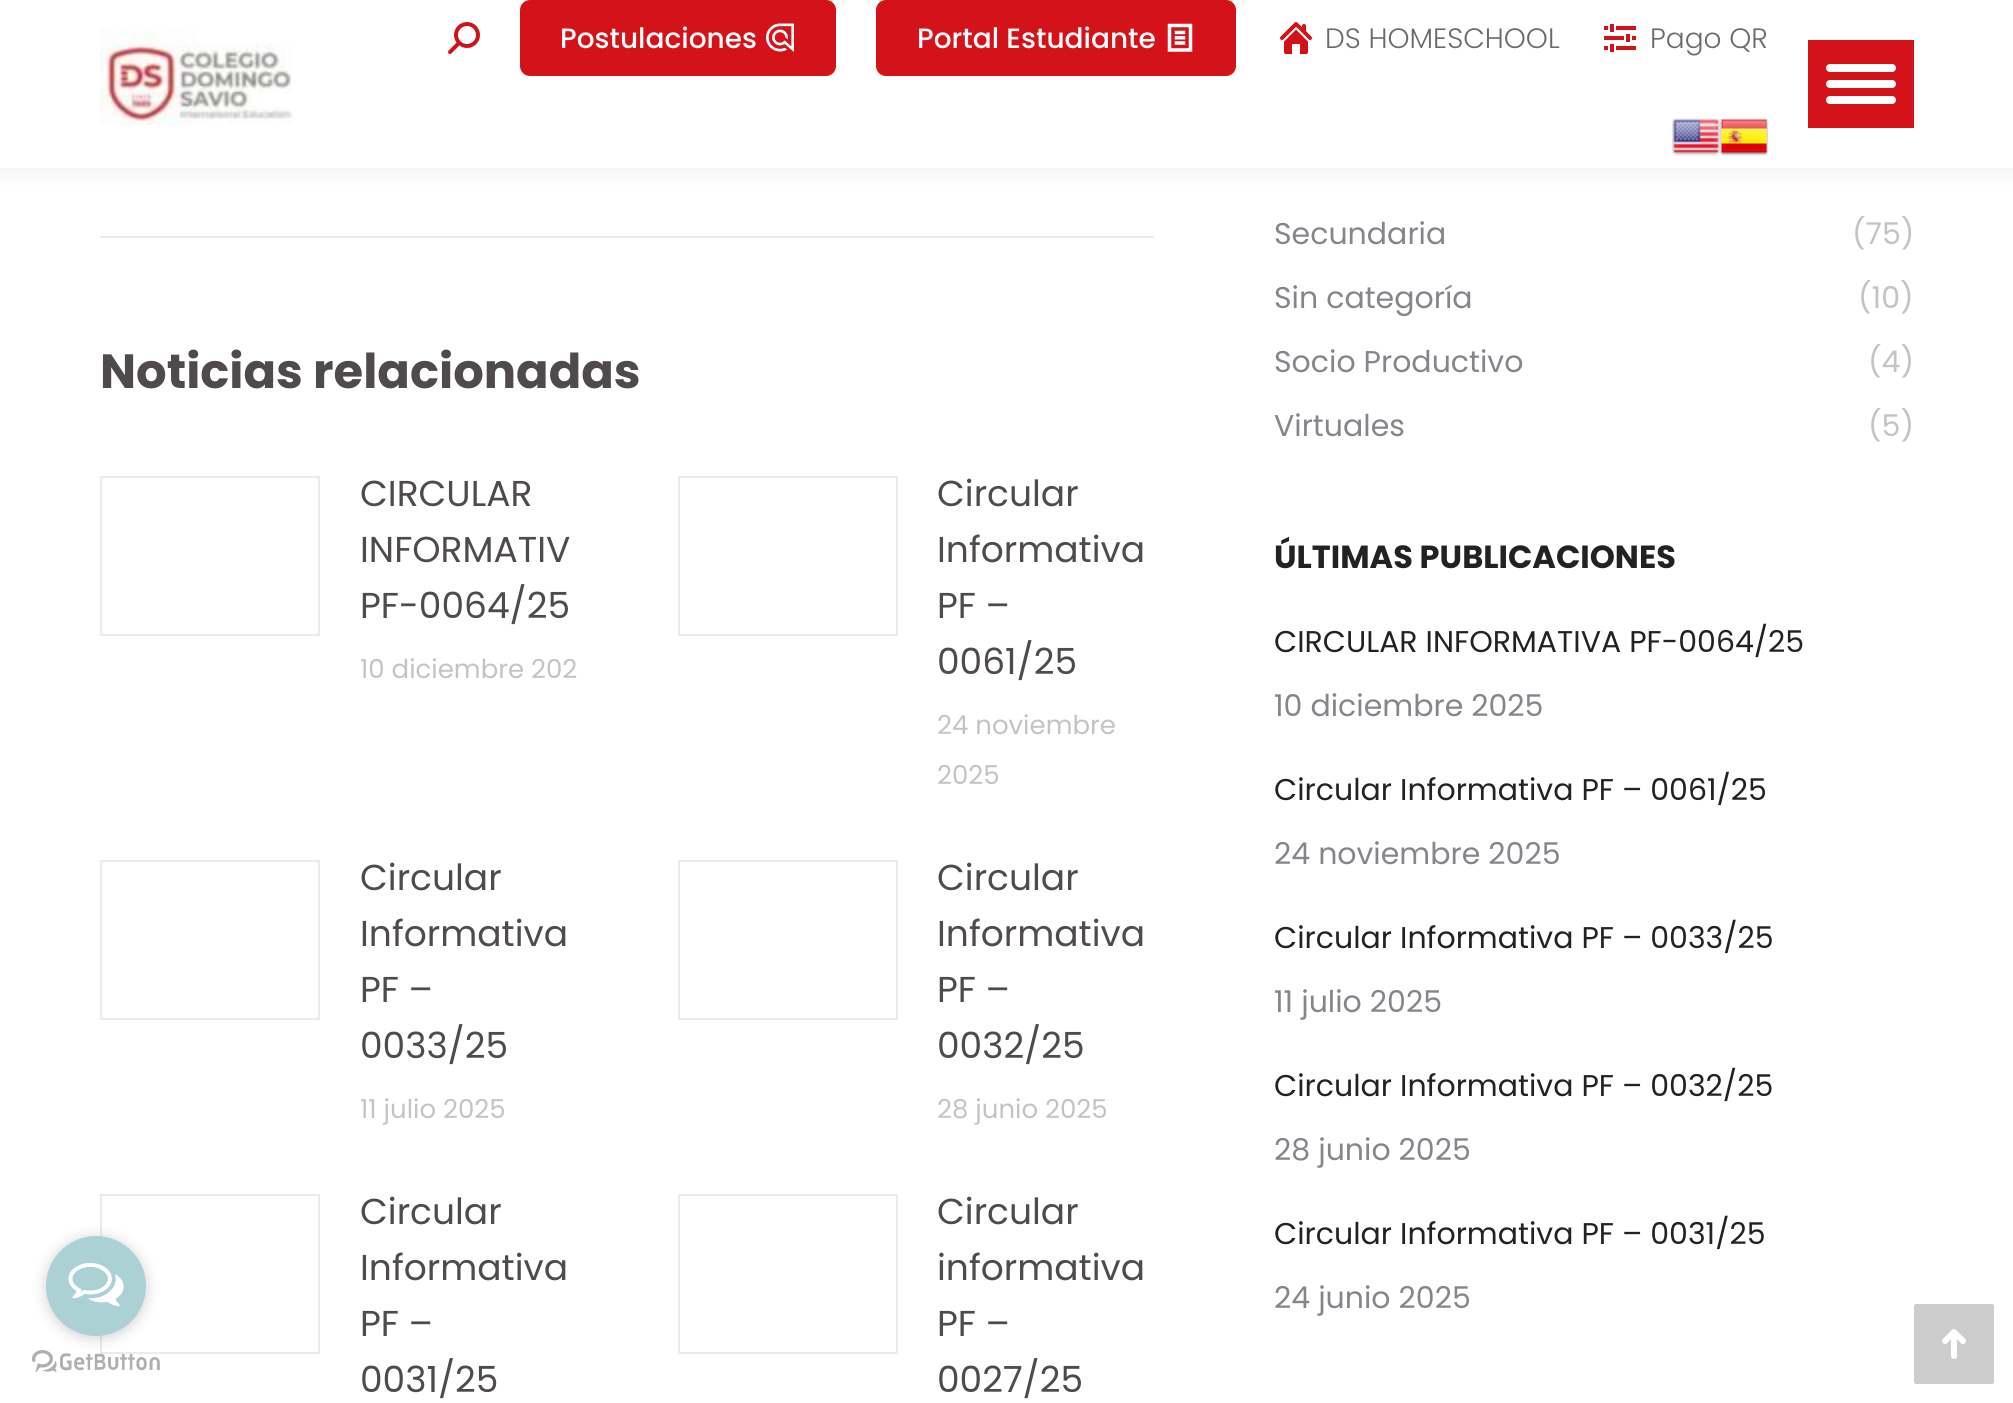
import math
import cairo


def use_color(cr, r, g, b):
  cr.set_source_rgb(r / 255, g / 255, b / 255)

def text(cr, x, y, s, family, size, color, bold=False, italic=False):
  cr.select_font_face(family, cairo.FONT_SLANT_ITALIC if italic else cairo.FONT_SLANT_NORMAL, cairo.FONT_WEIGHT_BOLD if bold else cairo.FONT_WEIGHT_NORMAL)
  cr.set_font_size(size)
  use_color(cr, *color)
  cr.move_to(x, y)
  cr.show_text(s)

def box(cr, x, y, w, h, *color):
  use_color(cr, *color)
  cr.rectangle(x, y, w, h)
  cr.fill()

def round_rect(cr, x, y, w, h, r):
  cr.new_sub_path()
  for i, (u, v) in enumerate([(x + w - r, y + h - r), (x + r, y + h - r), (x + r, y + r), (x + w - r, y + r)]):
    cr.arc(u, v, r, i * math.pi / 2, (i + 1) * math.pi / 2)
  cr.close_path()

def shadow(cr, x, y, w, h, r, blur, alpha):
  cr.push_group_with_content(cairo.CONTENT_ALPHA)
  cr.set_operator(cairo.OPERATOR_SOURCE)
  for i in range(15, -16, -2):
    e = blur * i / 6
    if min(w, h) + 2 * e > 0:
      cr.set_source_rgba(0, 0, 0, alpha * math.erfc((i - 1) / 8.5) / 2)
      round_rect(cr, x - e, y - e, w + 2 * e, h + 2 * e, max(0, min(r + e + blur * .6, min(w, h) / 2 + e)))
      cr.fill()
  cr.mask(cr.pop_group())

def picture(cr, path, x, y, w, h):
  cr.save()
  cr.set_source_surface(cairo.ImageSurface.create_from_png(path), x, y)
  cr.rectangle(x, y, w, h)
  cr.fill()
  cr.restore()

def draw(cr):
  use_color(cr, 255, 255, 255)
  cr.paint()
  cr.rectangle(101, 1195, 218, 158)
  use_color(cr, 235, 235, 235)
  cr.stroke()
  picture(cr, "img_02.png", 32, 1350, 128, 22)
  use_color(cr, 136, 136, 136)
  shadow(cr, 46, 1238, 100, 100, 50, 7, 0.4)
  use_color(cr, 172, 209, 212)
  cr.arc(96, 1286, 50, 0, 2 * math.pi)
  cr.fill()
  picture(cr, "img_01.png", 68, 1263, 56, 44)
  use_color(cr, 0, 0, 0)
  shadow(cr, -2, -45, 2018, 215, 0, 15, 0.07)
  box(cr, 0, 0, 2013, 168, 255, 255, 255)
  picture(cr, "img_03.png", 100, 28, 193, 98)
  picture(cr, "img_04.png", 448, 22, 32, 32)
  use_color(cr, 212, 18, 26)
  round_rect(cr, 521, 1, 314, 74, 9)
  cr.fill_preserve()
  cr.stroke()
  picture(cr, "img_05.png", 766, 23, 28, 29)
  round_rect(cr, 877, 1, 358, 74, 9)
  cr.fill_preserve()
  cr.stroke()
  picture(cr, "img_06.png", 1167, 23, 26, 29)
  picture(cr, "img_07.png", 1280, 22, 32, 32)
  picture(cr, "img_08.png", 1604, 24, 32, 28)
  picture(cr, "img_09.png", 1672, 118, 48, 38)
  picture(cr, "img_10.png", 1720, 118, 48, 38)
  box(cr, 1808, 40, 106, 88, 212, 18, 26)
  use_color(cr, 255, 255, 255)
  round_rect(cr, 1826, 64, 70, 8, 4)
  cr.fill()
  round_rect(cr, 1826, 80, 70, 8, 4)
  cr.fill()
  round_rect(cr, 1826, 96, 70, 8, 4)
  cr.fill()
  box(cr, 100, 236, 1054, 2, 235, 235, 235)
  cr.rectangle(101, 477, 218, 158)
  cr.stroke()
  cr.rectangle(679, 477, 218, 158)
  cr.stroke()
  cr.rectangle(101, 861, 218, 158)
  cr.stroke()
  cr.rectangle(679, 861, 218, 158)
  cr.stroke()
  cr.rectangle(679, 1195, 218, 158)
  cr.stroke()
  use_color(cr, 204, 204, 204)
  round_rect(cr, 1914, 1304, 80, 80, 2)
  cr.fill()
  picture(cr, "img_11.png", 1942, 1329, 24, 30)
  text(cr, 560, 48, "Postulaciones", "Poppins Medium", 28, (255, 255, 255))
  text(cr, 917, 48, "Portal Estudiante", "Poppins Medium", 28, (255, 255, 255))
  text(cr, 1325, 48, "DS HOMESCHOOL", "Poppins Light", 28, (106, 106, 106))
  text(cr, 1650, 48, "Pago QR", "Poppins Light", 28, (106, 106, 106))
  text(cr, 100, 388, "Noticias relacionadas", "Poppins", 48, (79, 75, 74), bold=True)
  text(cr, 360, 506, "CIRCULAR", "Poppins", 36, (79, 75, 74))
  text(cr, 360, 562, "INFORMATIV", "Poppins", 36, (79, 75, 74))
  text(cr, 360, 618, "PF-0064/25", "Poppins", 36, (79, 75, 74))
  text(cr, 360, 678, "10 diciembre 202", "Poppins", 26, (194, 195, 198))
  text(cr, 937, 506, "Circular", "Poppins", 36, (79, 75, 74))
  text(cr, 937, 562, "Informativa", "Poppins", 36, (79, 75, 74))
  text(cr, 937, 618, "PF –", "Poppins", 36, (79, 75, 74))
  text(cr, 937, 674, "0061/25", "Poppins", 36, (79, 75, 74))
  text(cr, 937, 734, "24 noviembre", "Poppins", 26, (194, 195, 198))
  text(cr, 937, 784, "2025", "Poppins", 26, (194, 195, 198))
  text(cr, 360, 890, "Circular", "Poppins", 36, (79, 75, 74))
  text(cr, 360, 946, "Informativa", "Poppins", 36, (79, 75, 74))
  text(cr, 360, 1002, "PF –", "Poppins", 36, (79, 75, 74))
  text(cr, 360, 1058, "0033/25", "Poppins", 36, (79, 75, 74))
  text(cr, 360, 1118, "11 julio 2025", "Poppins", 26, (194, 195, 198))
  text(cr, 937, 890, "Circular", "Poppins", 36, (79, 75, 74))
  text(cr, 937, 946, "Informativa", "Poppins", 36, (79, 75, 74))
  text(cr, 937, 1002, "PF –", "Poppins", 36, (79, 75, 74))
  text(cr, 937, 1058, "0032/25", "Poppins", 36, (79, 75, 74))
  text(cr, 937, 1118, "28 junio 2025", "Poppins", 26, (194, 195, 198))
  text(cr, 360, 1224, "Circular", "Poppins", 36, (79, 75, 74))
  text(cr, 360, 1280, "Informativa", "Poppins", 36, (79, 75, 74))
  text(cr, 360, 1336, "PF –", "Poppins", 36, (79, 75, 74))
  text(cr, 360, 1392, "0031/25", "Poppins", 36, (79, 75, 74))
  text(cr, 937, 1224, "Circular", "Poppins", 36, (79, 75, 74))
  text(cr, 937, 1280, "informativa", "Poppins", 36, (79, 75, 74))
  text(cr, 937, 1336, "PF –", "Poppins", 36, (79, 75, 74))
  text(cr, 937, 1392, "0027/25", "Poppins", 36, (79, 75, 74))
  text(cr, 1274, 244, "Secundaria", "Poppins", 30, (133, 134, 140))
  text(cr, 1852, 244, "(75)", "Poppins", 30, (194, 195, 198))
  text(cr, 1274, 308, "Sin categoría", "Poppins", 30, (133, 134, 140))
  text(cr, 1858, 308, "(10)", "Poppins", 30, (194, 195, 198))
  text(cr, 1274, 372, "Socio Productivo", "Poppins", 30, (133, 134, 140))
  text(cr, 1868, 372, "(4)", "Poppins", 30, (194, 195, 198))
  text(cr, 1274, 436, "Virtuales", "Poppins", 30, (133, 134, 140))
  text(cr, 1868, 436, "(5)", "Poppins", 30, (194, 195, 198))
  text(cr, 1274, 568, "ÚLTIMAS PUBLICACIONES", "Poppins", 32, (34, 34, 34), bold=True)
  text(cr, 1274, 652, "CIRCULAR INFORMATIVA PF-0064/25", "Poppins", 30, (34, 34, 34))
  text(cr, 1274, 716, "10 diciembre 2025", "Poppins", 30, (133, 134, 140))
  text(cr, 1274, 800, "Circular Informativa PF – 0061/25", "Poppins", 30, (34, 34, 34))
  text(cr, 1274, 864, "24 noviembre 2025", "Poppins", 30, (133, 134, 140))
  text(cr, 1274, 948, "Circular Informativa PF – 0033/25", "Poppins", 30, (34, 34, 34))
  text(cr, 1274, 1012, "11 julio 2025", "Poppins", 30, (133, 134, 140))
  text(cr, 1274, 1096, "Circular Informativa PF – 0032/25", "Poppins", 30, (34, 34, 34))
  text(cr, 1274, 1160, "28 junio 2025", "Poppins", 30, (133, 134, 140))
  text(cr, 1274, 1244, "Circular Informativa PF – 0031/25", "Poppins", 30, (34, 34, 34))
  text(cr, 1274, 1308, "24 junio 2025", "Poppins", 30, (133, 134, 140))


surface = cairo.ImageSurface(cairo.FORMAT_RGB24, 2013, 1403)
cr = cairo.Context(surface)
options = cairo.FontOptions()
options.set_hint_metrics(cairo.HINT_METRICS_OFF)
options.set_hint_style(cairo.HINT_STYLE_NONE)
cr.set_font_options(options)
cr.set_miter_limit(4)
draw(cr)
surface.write_to_png("out.png")
